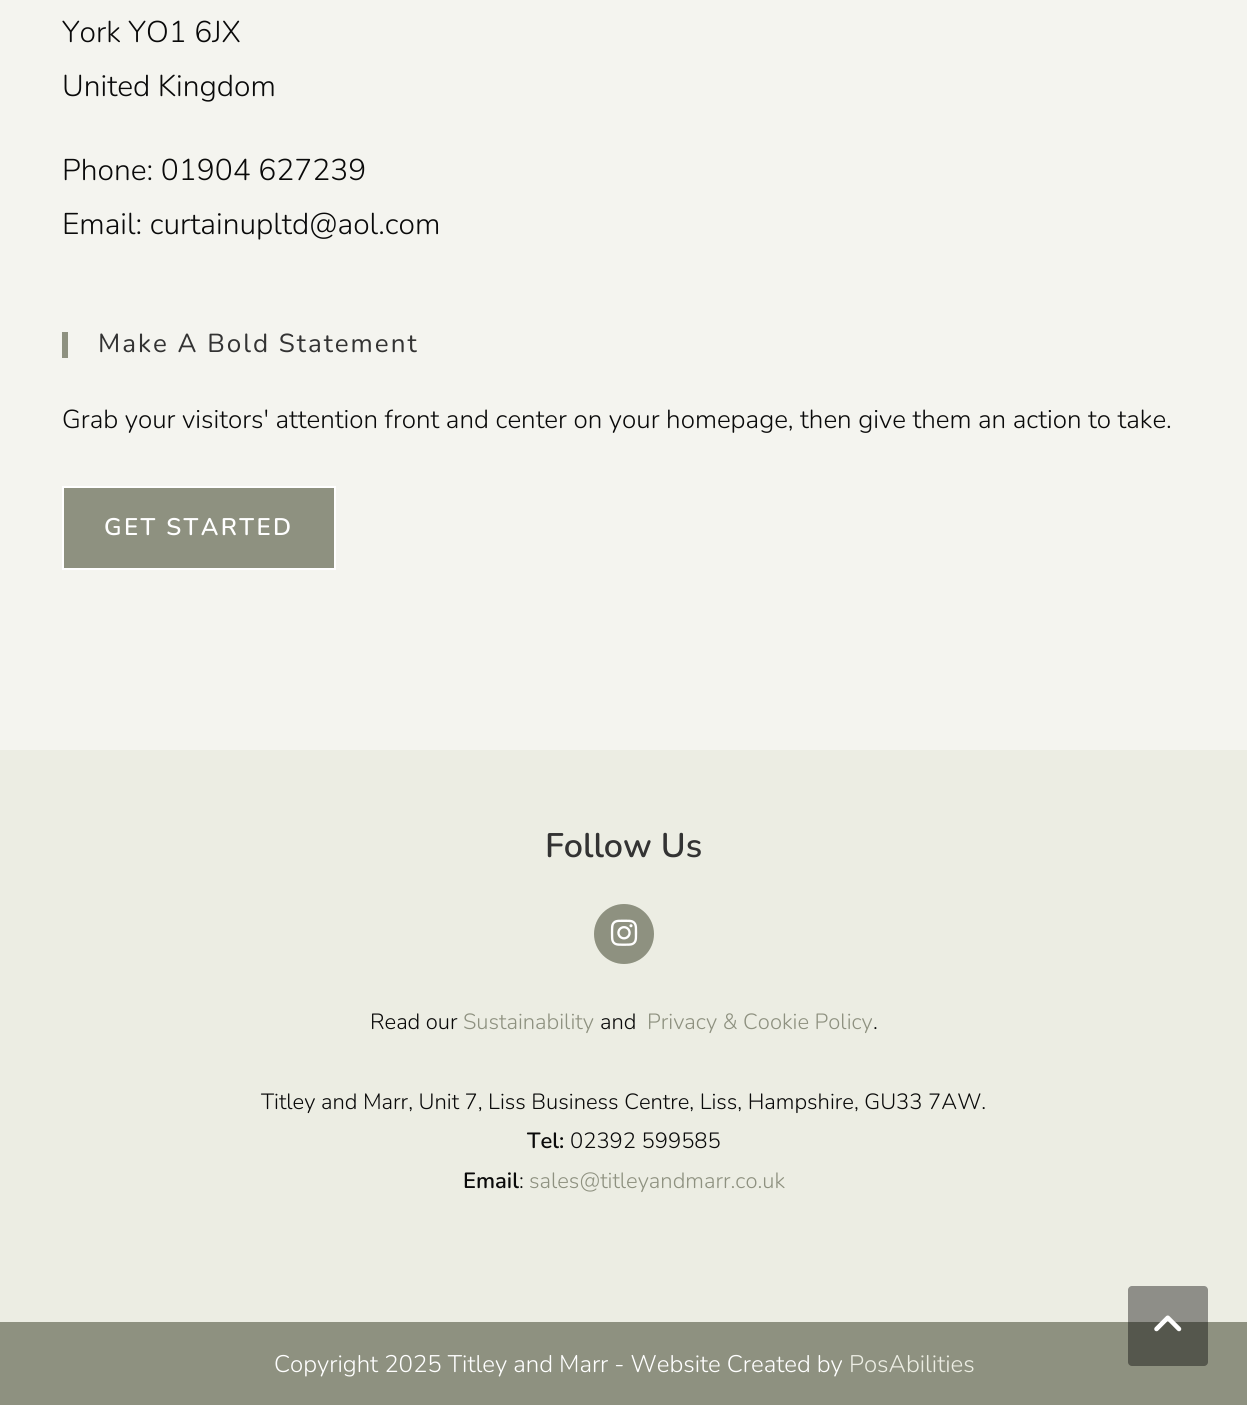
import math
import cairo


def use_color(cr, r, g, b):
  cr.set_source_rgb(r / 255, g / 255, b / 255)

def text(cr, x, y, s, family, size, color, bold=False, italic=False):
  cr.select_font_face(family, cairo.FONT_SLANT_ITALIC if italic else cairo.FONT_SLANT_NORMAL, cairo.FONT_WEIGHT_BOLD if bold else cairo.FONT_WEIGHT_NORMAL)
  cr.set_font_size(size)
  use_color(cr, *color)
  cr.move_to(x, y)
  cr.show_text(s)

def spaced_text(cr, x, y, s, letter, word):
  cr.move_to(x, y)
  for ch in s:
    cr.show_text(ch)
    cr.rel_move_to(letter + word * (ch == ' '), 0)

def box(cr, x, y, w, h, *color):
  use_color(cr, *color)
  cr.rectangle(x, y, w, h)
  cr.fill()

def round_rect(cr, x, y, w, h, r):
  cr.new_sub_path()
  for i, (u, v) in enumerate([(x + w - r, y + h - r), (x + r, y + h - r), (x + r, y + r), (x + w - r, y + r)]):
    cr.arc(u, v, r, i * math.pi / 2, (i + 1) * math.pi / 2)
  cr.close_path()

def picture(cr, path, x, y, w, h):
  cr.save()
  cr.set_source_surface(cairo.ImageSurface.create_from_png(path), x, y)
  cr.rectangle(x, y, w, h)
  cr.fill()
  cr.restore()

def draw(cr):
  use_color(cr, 244, 244, 239)
  cr.paint()
  box(cr, 62, 332, 6, 26, 142, 145, 128)
  cr.rectangle(63, 487, 272, 82)
  cr.fill_preserve()
  use_color(cr, 255, 255, 255)
  cr.stroke()
  box(cr, 0, 750, 1247, 572, 236, 237, 227)
  use_color(cr, 142, 145, 128)
  cr.arc(624, 934, 30, 0, 2 * math.pi)
  cr.fill()
  picture(cr, "img_01.png", 610, 919, 28, 27)
  box(cr, 0, 1322, 1247, 83, 142, 145, 128)
  cr.set_source_rgba(0, 0, 0, 0.4)
  round_rect(cr, 1128, 1286, 80, 80, 4)
  cr.fill()
  picture(cr, "img_02.png", 1154, 1315, 28, 17)
  text(cr, 62, 42, "York YO1 6JX", "Nunito Light", 30, (10, 10, 10))
  text(cr, 62, 96, "United Kingdom", "Nunito Light", 30, (10, 10, 10))
  text(cr, 62, 180, "Phone: 01904 627239", "Nunito Light", 30, (10, 10, 10))
  text(cr, 62, 234, "Email: curtainupltd@aol.com", "Nunito Light", 30, (10, 10, 10))
  cr.select_font_face("Nunito")
  cr.set_font_size(26)
  use_color(cr, 51, 51, 51)
  spaced_text(cr, 98, 352, "Make A Bold Statement", 2, 0)
  text(cr, 62, 428, "Grab your visitors' attention front and center on your homepage, then give them an action to take.", "Nunito Light", 26, (10, 10, 10))
  cr.select_font_face("Nunito SemiBold")
  cr.set_font_size(24)
  use_color(cr, 255, 255, 255)
  spaced_text(cr, 104, 535, "GET STARTED", 2.4, 0)
  text(cr, 545, 857, "Follow Us", "Nunito SemiBold", 34, (51, 51, 51))
  text(cr, 370, 1029, "Read our", "Nunito Light", 22, (10, 10, 10))
  text(cr, 463, 1029, "Sustainability", "Nunito Light", 22, (142, 145, 128))
  text(cr, 600, 1029, "and", "Nunito Light", 22, (10, 10, 10))
  text(cr, 647, 1029, "Privacy & Cookie Policy", "Nunito Light", 22, (142, 145, 128))
  text(cr, 873, 1029, ".", "Nunito Light", 22, (10, 10, 10))
  text(cr, 261, 1109, "Titley and Marr, Unit 7, Liss Business Centre, Liss, Hampshire, GU33 7AW.", "Nunito Light", 22, (10, 10, 10))
  text(cr, 527, 1148, "Tel:", "Nunito SemiBold", 22, (10, 10, 10))
  text(cr, 570, 1148, "02392 599585", "Nunito Light", 22, (10, 10, 10))
  text(cr, 463, 1188, "Email", "Nunito SemiBold", 22, (10, 10, 10))
  text(cr, 519, 1188, ":", "Nunito Light", 22, (10, 10, 10))
  text(cr, 529, 1188, "sales@titleyandmarr.co.uk", "Nunito Light", 22, (142, 145, 128))
  text(cr, 274, 1372, "Copyright 2025 Titley and Marr - Website Created by", "Nunito Light", 24, (255, 255, 255))
  text(cr, 849, 1372, "PosAbilities", "Nunito Light", 24, (236, 237, 227))


surface = cairo.ImageSurface(cairo.FORMAT_RGB24, 1247, 1405)
cr = cairo.Context(surface)
options = cairo.FontOptions()
options.set_hint_metrics(cairo.HINT_METRICS_OFF)
options.set_hint_style(cairo.HINT_STYLE_NONE)
cr.set_font_options(options)
cr.set_miter_limit(4)
draw(cr)
surface.write_to_png("out.png")
